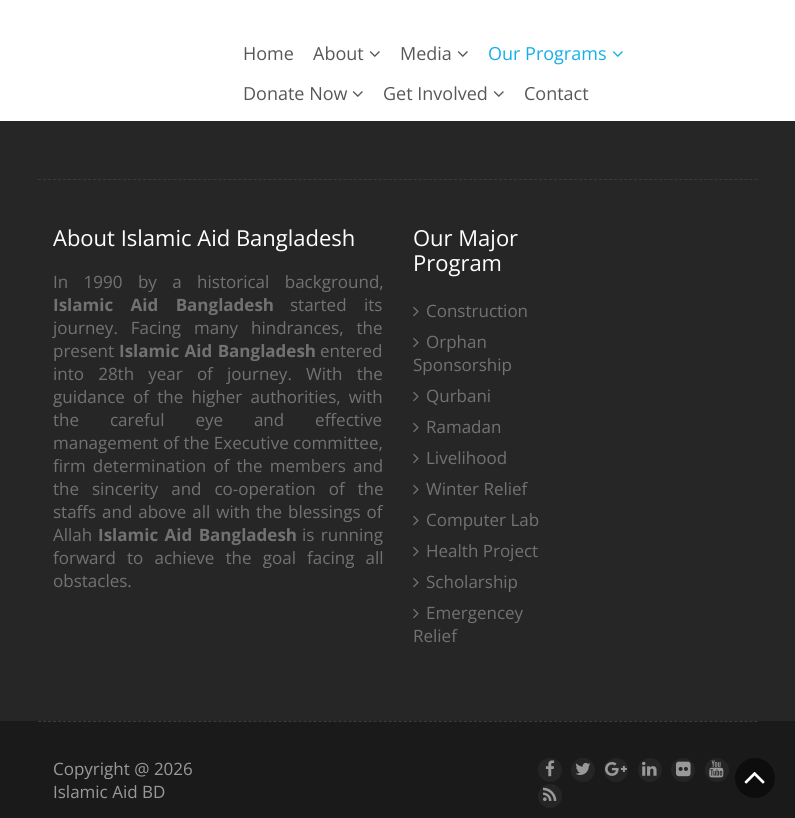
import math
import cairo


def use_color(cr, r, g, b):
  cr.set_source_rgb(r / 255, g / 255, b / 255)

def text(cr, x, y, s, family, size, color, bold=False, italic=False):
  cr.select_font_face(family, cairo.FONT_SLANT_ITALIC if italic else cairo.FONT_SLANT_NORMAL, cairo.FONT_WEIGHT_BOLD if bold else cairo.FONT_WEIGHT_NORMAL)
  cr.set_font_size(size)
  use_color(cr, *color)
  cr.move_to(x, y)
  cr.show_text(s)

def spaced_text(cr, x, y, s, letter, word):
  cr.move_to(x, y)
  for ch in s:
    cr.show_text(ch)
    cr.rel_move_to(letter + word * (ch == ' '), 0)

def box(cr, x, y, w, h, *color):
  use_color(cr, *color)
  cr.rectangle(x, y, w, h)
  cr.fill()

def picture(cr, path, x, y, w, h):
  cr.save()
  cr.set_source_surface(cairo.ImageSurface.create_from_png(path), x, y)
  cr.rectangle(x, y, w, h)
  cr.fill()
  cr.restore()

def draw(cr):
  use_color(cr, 38, 38, 38)
  cr.paint()
  box(cr, 0, 0, 795, 121, 255, 255, 255)
  picture(cr, "img_01.png", 369, 51, 11, 6)
  picture(cr, "img_01.png", 457, 51, 11, 6)
  picture(cr, "img_02.png", 612, 51, 11, 6)
  picture(cr, "img_01.png", 352, 91, 11, 6)
  picture(cr, "img_01.png", 493, 91, 11, 6)
  cr.new_path()
  cr.move_to(38, 179.5)
  cr.line_to(758, 179.5)
  use_color(cr, 59, 59, 59)
  cr.set_line_width(1)
  cr.set_dash([3, 2.01])
  cr.stroke()
  picture(cr, "img_03.png", 413, 306, 6, 11)
  picture(cr, "img_03.png", 413, 337, 6, 11)
  picture(cr, "img_03.png", 413, 391, 6, 11)
  picture(cr, "img_03.png", 413, 422, 6, 11)
  picture(cr, "img_03.png", 413, 453, 6, 11)
  picture(cr, "img_03.png", 413, 484, 6, 11)
  picture(cr, "img_03.png", 413, 515, 6, 11)
  picture(cr, "img_03.png", 413, 546, 6, 11)
  picture(cr, "img_03.png", 413, 577, 6, 11)
  picture(cr, "img_03.png", 413, 608, 6, 11)
  box(cr, 0, 721, 795, 97, 26, 26, 26)
  cr.new_path()
  cr.move_to(38, 721.5)
  cr.line_to(758, 721.5)
  use_color(cr, 59, 59, 59)
  cr.stroke()
  use_color(cr, 37, 37, 37)
  cr.arc(550, 770, 12, 0, 2 * math.pi)
  cr.fill()
  picture(cr, "img_04.png", 545, 760, 10, 17)
  cr.arc(583, 770, 12, 0, 2 * math.pi)
  cr.fill()
  picture(cr, "img_05.png", 575, 762, 16, 13)
  cr.arc(616, 770, 12, 0, 2 * math.pi)
  cr.fill()
  picture(cr, "img_06.png", 605, 762, 22, 14)
  cr.arc(650, 770, 12, 0, 2 * math.pi)
  cr.fill()
  picture(cr, "img_07.png", 642, 761, 15, 15)
  cr.arc(683, 770, 12, 0, 2 * math.pi)
  cr.fill()
  picture(cr, "img_08.png", 676, 761, 15, 16)
  cr.arc(717, 770, 12, 0, 2 * math.pi)
  cr.fill()
  picture(cr, "img_09.png", 709, 760, 15, 18)
  cr.arc(550, 796, 12, 0, 2 * math.pi)
  cr.fill()
  picture(cr, "img_10.png", 543, 787, 14, 14)
  use_color(cr, 13, 13, 13)
  cr.arc(755, 778, 20, 0, 2 * math.pi)
  cr.fill()
  picture(cr, "img_11.png", 744, 772, 21, 12)
  text(cr, 243, 60, "Home", "Open Sans", 18, (87, 87, 87))
  text(cr, 313, 60, "About", "Open Sans", 18, (87, 87, 87))
  text(cr, 400, 60, "Media", "Open Sans", 18, (87, 87, 87))
  text(cr, 488, 60, "Our Programs", "Open Sans", 18, (19, 175, 235))
  text(cr, 243, 100, "Donate Now", "Open Sans", 18, (87, 87, 87))
  text(cr, 383, 100, "Get Involved", "Open Sans", 18, (87, 87, 87))
  text(cr, 524, 100, "Contact", "Open Sans", 18, (87, 87, 87))
  text(cr, 53, 246, "About Islamic Aid Bangladesh", "Open Sans", 22, (255, 255, 255))
  cr.set_font_size(17)
  use_color(cr, 114, 114, 114)
  spaced_text(cr, 53, 288, "In 1990 by a historical background,", 0, 11)
  cr.select_font_face("Open Sans", cairo.FONT_SLANT_NORMAL, cairo.FONT_WEIGHT_BOLD)
  spaced_text(cr, 53, 311, "Islamic Aid Bangladesh", 0, 13)
  cr.select_font_face("Open Sans")
  spaced_text(cr, 290, 311, "started its", 0, 13)
  spaced_text(cr, 53, 334, "journey. Facing many hindrances, the", 0, 8.5)
  text(cr, 53, 357, "present", "Open Sans", 17, (114, 114, 114))
  cr.select_font_face("Open Sans", cairo.FONT_SLANT_NORMAL, cairo.FONT_WEIGHT_BOLD)
  spaced_text(cr, 119, 357, "Islamic Aid Bangladesh", 0, 1)
  text(cr, 320, 357, "entered", "Open Sans", 17, (114, 114, 114))
  spaced_text(cr, 53, 380, "into 28th year of journey. With the", 0, 9.75)
  spaced_text(cr, 53, 403, "guidance of the higher authorities, with", 0, 3.75)
  spaced_text(cr, 53, 426, "the careful eye and effective", 0, 26.5)
  text(cr, 53, 449, "management of the Executive committee,", "Open Sans", 17, (114, 114, 114))
  spaced_text(cr, 53, 472, "firm determination of the members and", 0, 2.75)
  spaced_text(cr, 53, 495, "the sincerity and co-operation of the", 0, 8.5)
  spaced_text(cr, 53, 518, "staffs and above all with the blessings of", 0, 1.5)
  text(cr, 53, 541, "Allah", "Open Sans", 17, (114, 114, 114))
  cr.select_font_face("Open Sans", cairo.FONT_SLANT_NORMAL, cairo.FONT_WEIGHT_BOLD)
  spaced_text(cr, 98, 541, "Islamic Aid Bangladesh", 0, 2)
  cr.select_font_face("Open Sans")
  spaced_text(cr, 302, 541, "is running", 0, 2)
  spaced_text(cr, 53, 564, "forward to achieve the goal facing all", 0, 6.75)
  text(cr, 53, 587, "obstacles.", "Open Sans", 17, (114, 114, 114))
  text(cr, 413, 246, "Our Major", "Open Sans", 22, (255, 255, 255))
  text(cr, 413, 271, "Program", "Open Sans", 22, (255, 255, 255))
  text(cr, 426, 317, "Construction", "Open Sans", 17, (114, 114, 114))
  text(cr, 426, 348, "Orphan", "Open Sans", 17, (114, 114, 114))
  text(cr, 413, 371, "Sponsorship", "Open Sans", 17, (114, 114, 114))
  text(cr, 426, 402, "Qurbani", "Open Sans", 17, (114, 114, 114))
  text(cr, 426, 433, "Ramadan", "Open Sans", 17, (114, 114, 114))
  text(cr, 426, 464, "Livelihood", "Open Sans", 17, (114, 114, 114))
  text(cr, 426, 495, "Winter Relief", "Open Sans", 17, (114, 114, 114))
  text(cr, 426, 526, "Computer Lab", "Open Sans", 17, (114, 114, 114))
  text(cr, 426, 557, "Health Project", "Open Sans", 17, (114, 114, 114))
  text(cr, 426, 588, "Scholarship", "Open Sans", 17, (114, 114, 114))
  text(cr, 426, 619, "Emergencey", "Open Sans", 17, (114, 114, 114))
  text(cr, 413, 642, "Relief", "Open Sans", 17, (114, 114, 114))
  text(cr, 53, 775, "Copyright @ 2026", "Open Sans", 17, (153, 153, 153))
  text(cr, 53, 798, "Islamic Aid BD", "Open Sans", 17, (153, 153, 153))


surface = cairo.ImageSurface(cairo.FORMAT_RGB24, 795, 818)
cr = cairo.Context(surface)
options = cairo.FontOptions()
options.set_hint_metrics(cairo.HINT_METRICS_OFF)
options.set_hint_style(cairo.HINT_STYLE_NONE)
cr.set_font_options(options)
cr.set_miter_limit(4)
draw(cr)
surface.write_to_png("out.png")
